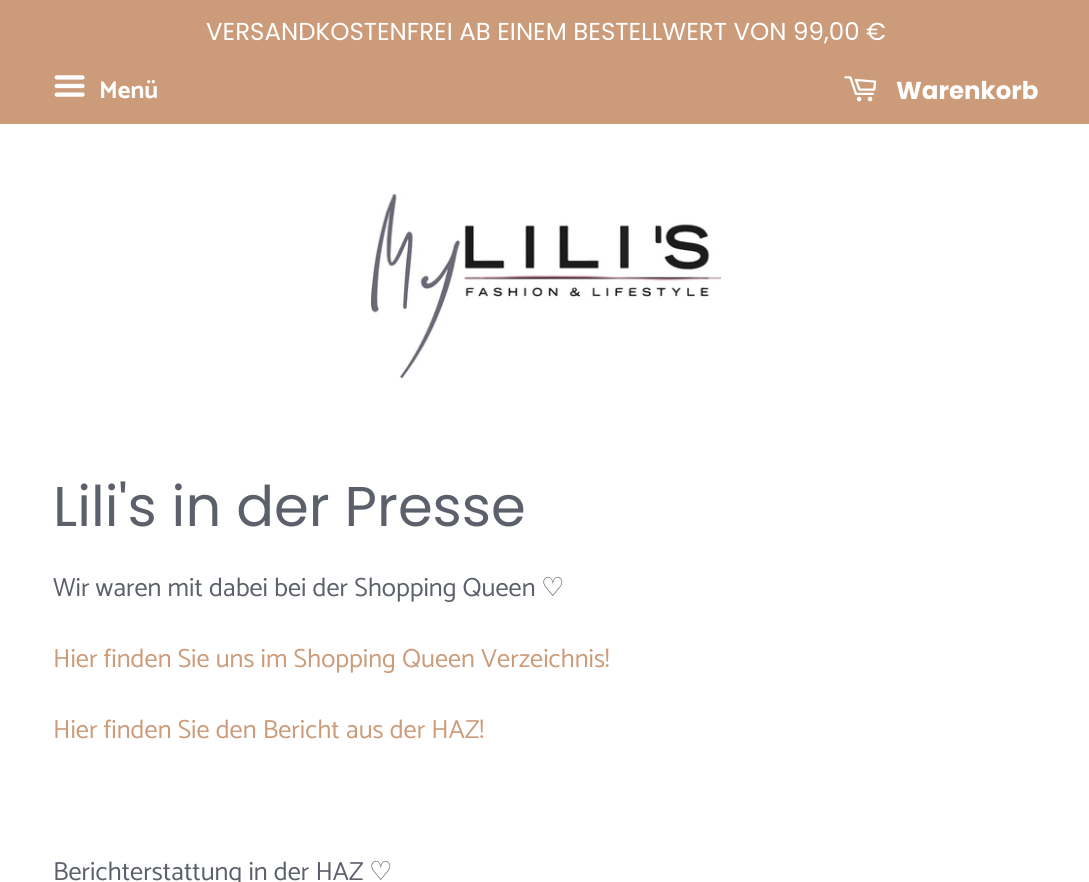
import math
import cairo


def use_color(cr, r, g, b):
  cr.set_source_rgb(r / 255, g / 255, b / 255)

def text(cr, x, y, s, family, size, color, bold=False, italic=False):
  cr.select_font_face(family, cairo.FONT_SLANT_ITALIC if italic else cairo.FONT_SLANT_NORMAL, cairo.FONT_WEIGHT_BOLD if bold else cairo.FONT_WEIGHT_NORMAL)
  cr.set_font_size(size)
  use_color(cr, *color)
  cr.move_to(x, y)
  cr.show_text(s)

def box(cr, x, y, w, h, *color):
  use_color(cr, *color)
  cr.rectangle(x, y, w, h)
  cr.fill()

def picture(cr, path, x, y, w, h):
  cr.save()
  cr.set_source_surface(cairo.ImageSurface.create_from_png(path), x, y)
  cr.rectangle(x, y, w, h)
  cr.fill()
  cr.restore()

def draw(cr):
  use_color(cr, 255, 255, 255)
  cr.paint()
  box(cr, 0, 0, 1089, 124, 204, 155, 121)
  picture(cr, "img_01.png", 54, 75, 31, 22)
  picture(cr, "img_02.png", 844, 76, 33, 26)
  picture(cr, "img_03.png", 371, 194, 350, 184)
  text(cr, 206, 40, "VERSANDKOSTENFREI AB EINEM BESTELLWERT VON 99,00 €", "Poppins", 24.5, (255, 255, 255))
  text(cr, 99, 98, "Menü", "Catamaran", 24.5, (255, 255, 255), bold=True)
  text(cr, 896, 99, "Warenkorb", "Poppins", 24.5, (255, 255, 255), bold=True)
  text(cr, 53, 526, "Lili's in der Presse", "Poppins", 56, (91, 96, 106))
  text(cr, 53, 596, "Wir waren mit dabei bei der Shopping Queen", "Catamaran", 26.25, (91, 96, 106))
  text(cr, 541, 596, "♡", "DejaVu Sans", 26.25, (91, 96, 106))
  text(cr, 53, 667, "Hier finden Sie uns im Shopping Queen Verzeichnis!", "Catamaran", 26.25, (204, 155, 121))
  text(cr, 53, 738, "Hier finden Sie den Bericht aus der HAZ!", "Catamaran", 26.25, (204, 155, 121))
  text(cr, 53, 880, "Berichterstattung in der HAZ", "Catamaran", 26.25, (91, 96, 106))
  text(cr, 369, 880, "♡", "DejaVu Sans", 26.25, (91, 96, 106))


surface = cairo.ImageSurface(cairo.FORMAT_RGB24, 1089, 882)
cr = cairo.Context(surface)
options = cairo.FontOptions()
options.set_hint_metrics(cairo.HINT_METRICS_OFF)
options.set_hint_style(cairo.HINT_STYLE_NONE)
cr.set_font_options(options)
cr.set_miter_limit(4)
draw(cr)
surface.write_to_png("out.png")
